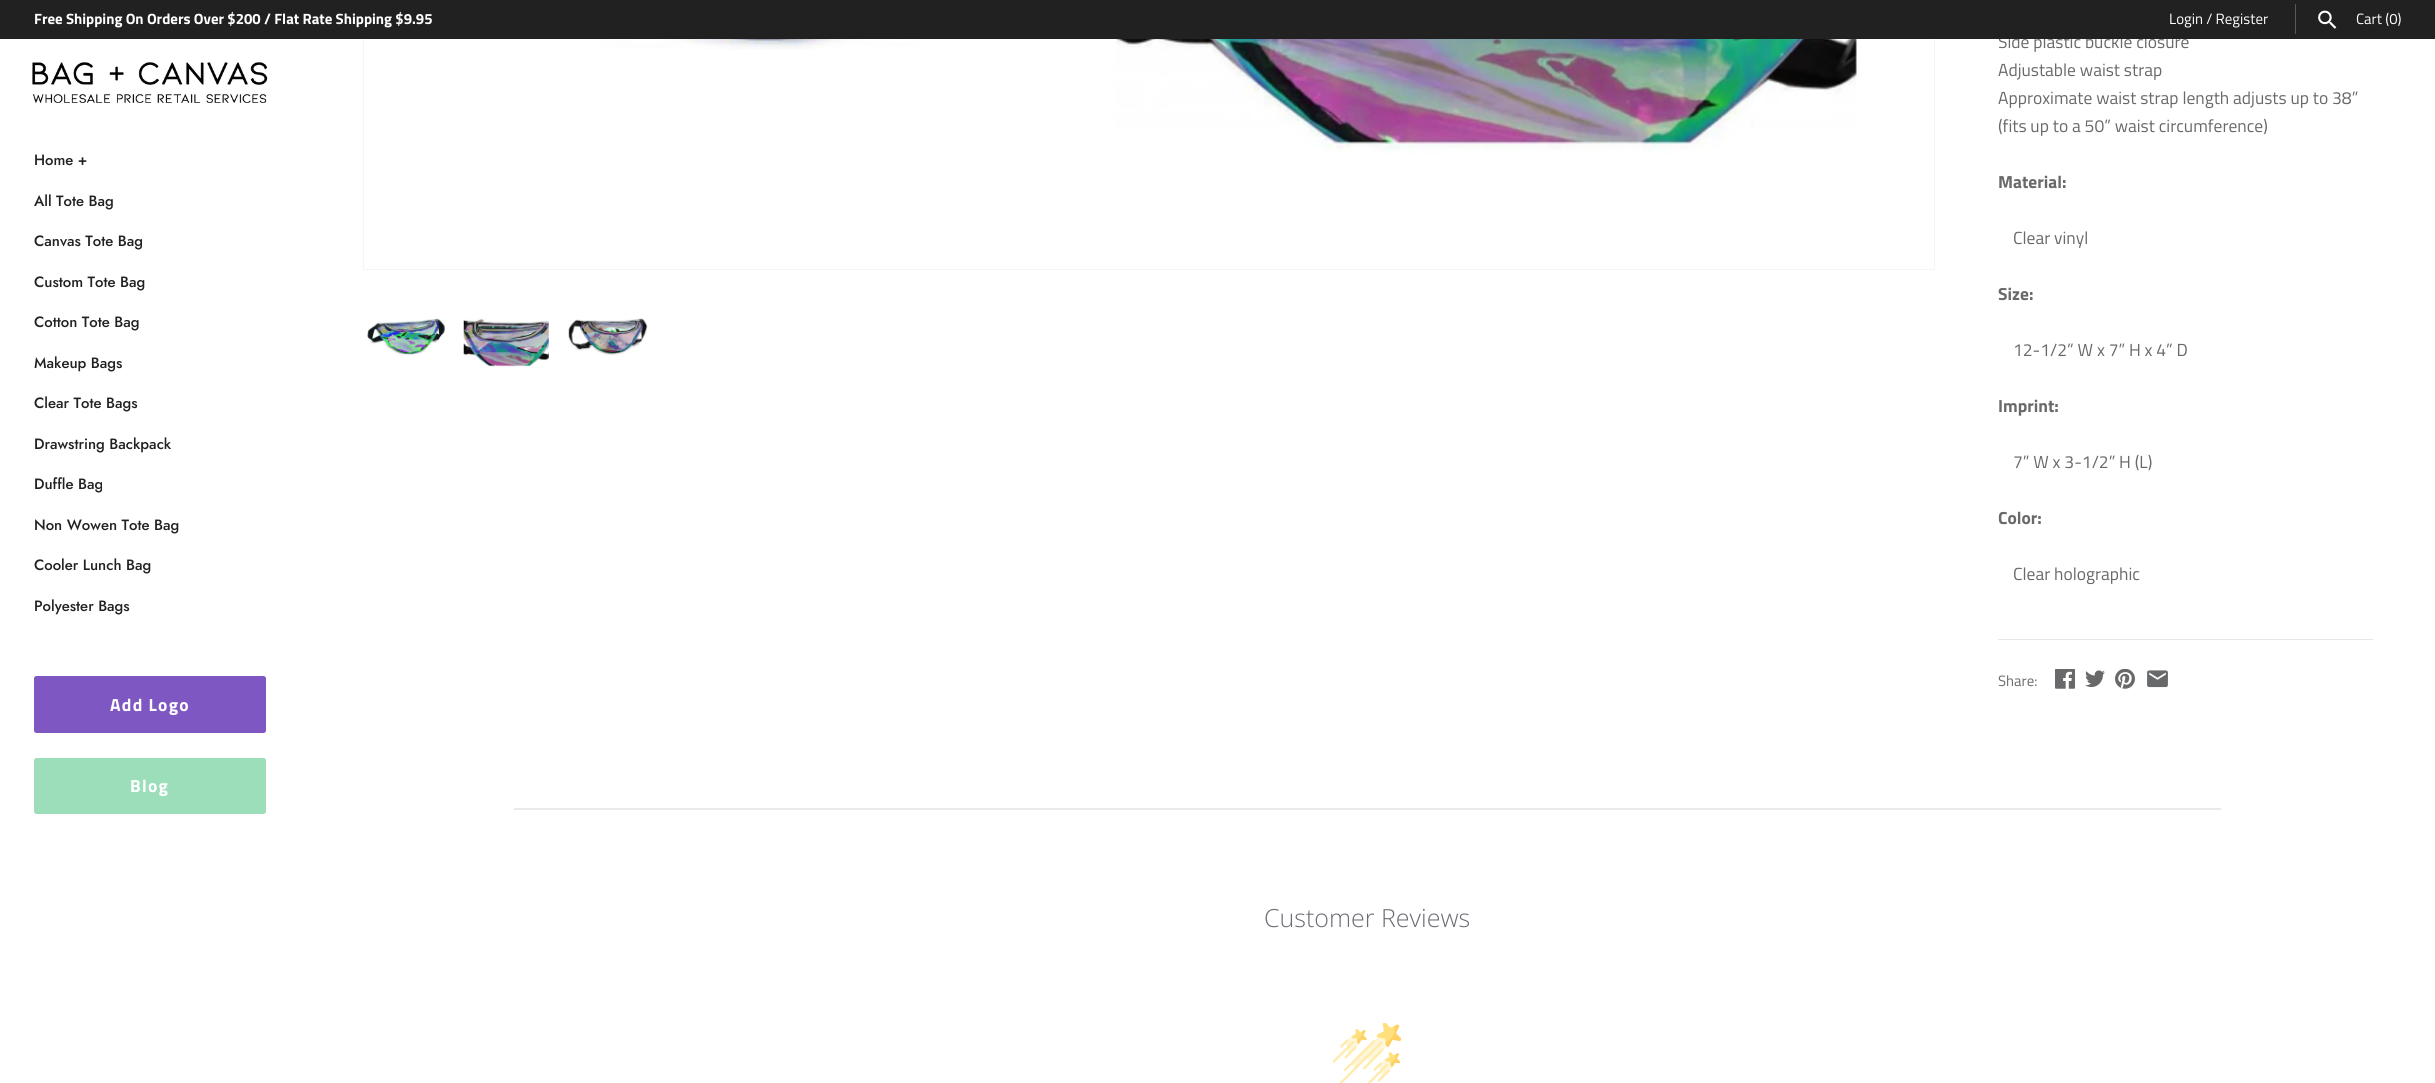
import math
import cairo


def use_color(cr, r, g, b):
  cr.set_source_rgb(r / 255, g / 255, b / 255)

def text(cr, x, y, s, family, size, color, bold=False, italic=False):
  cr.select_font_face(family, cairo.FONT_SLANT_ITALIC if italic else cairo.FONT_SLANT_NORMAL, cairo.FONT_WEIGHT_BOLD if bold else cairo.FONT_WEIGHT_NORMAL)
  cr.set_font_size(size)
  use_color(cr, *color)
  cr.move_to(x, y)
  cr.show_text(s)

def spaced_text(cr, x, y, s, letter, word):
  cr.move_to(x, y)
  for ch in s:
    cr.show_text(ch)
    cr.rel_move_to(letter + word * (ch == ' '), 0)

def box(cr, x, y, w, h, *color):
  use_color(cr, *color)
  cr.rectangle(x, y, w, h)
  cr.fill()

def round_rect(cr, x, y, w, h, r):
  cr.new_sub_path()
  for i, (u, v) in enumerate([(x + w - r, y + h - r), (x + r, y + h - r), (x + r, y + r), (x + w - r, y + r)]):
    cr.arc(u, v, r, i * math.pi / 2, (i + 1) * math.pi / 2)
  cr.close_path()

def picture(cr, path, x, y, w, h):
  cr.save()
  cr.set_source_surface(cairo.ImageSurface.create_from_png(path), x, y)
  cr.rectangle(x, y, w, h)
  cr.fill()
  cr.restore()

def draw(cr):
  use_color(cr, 255, 255, 255)
  cr.paint()
  picture(cr, "img_02.png", 32, 62, 236, 41)
  use_color(cr, 126, 87, 194)
  round_rect(cr, 34, 676, 232, 57, 2.5)
  cr.fill()
  use_color(cr, 156, 222, 186)
  round_rect(cr, 34, 758, 232, 56, 2.5)
  cr.fill()
  cr.rectangle(363.5, -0.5, 1571, 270)
  use_color(cr, 245, 245, 245)
  cr.set_line_width(1)
  cr.stroke()
  picture(cr, "img_03.png", 602, 39, 317, 11)
  picture(cr, "img_04.png", 1115, 39, 742, 115)
  picture(cr, "img_05.png", 367, 318, 78, 38)
  picture(cr, "img_06.png", 463, 318, 86, 49)
  picture(cr, "img_07.png", 568, 318, 80, 38)
  box(cr, 1998, 639, 375, 1, 231, 231, 231)
  picture(cr, "img_08.png", 2055, 669, 20, 20)
  picture(cr, "img_09.png", 2085, 670, 20, 18)
  picture(cr, "img_10.png", 2115, 669, 20, 20)
  picture(cr, "img_11.png", 2147, 670, 21, 18)
  picture(cr, "img_12.png", 513, 808, 1709, 2)
  picture(cr, "img_13.png", 1333, 1023, 68, 60)
  text(cr, 34, 165, "Home +", "Jost Medium", 14.9, (33, 33, 33))
  text(cr, 34, 206, "All Tote Bag", "Jost Medium", 14.9, (33, 33, 33))
  text(cr, 34, 246, "Canvas Tote Bag", "Jost Medium", 14.9, (33, 33, 33))
  text(cr, 34, 287, "Custom Tote Bag", "Jost Medium", 14.9, (33, 33, 33))
  text(cr, 34, 327, "Cotton Tote Bag", "Jost Medium", 14.9, (33, 33, 33))
  text(cr, 34, 368, "Makeup Bags", "Jost Medium", 14.9, (33, 33, 33))
  text(cr, 34, 408, "Clear Tote Bags", "Jost Medium", 14.9, (33, 33, 33))
  text(cr, 34, 449, "Drawstring Backpack", "Jost Medium", 14.9, (33, 33, 33))
  text(cr, 34, 489, "Duffle Bag", "Jost Medium", 14.9, (33, 33, 33))
  text(cr, 34, 530, "Non Wowen Tote Bag", "Jost Medium", 14.9, (33, 33, 33))
  text(cr, 34, 570, "Cooler Lunch Bag", "Jost Medium", 14.9, (33, 33, 33))
  text(cr, 34, 611, "Polyester Bags", "Jost Medium", 14.9, (33, 33, 33))
  cr.select_font_face("Titillium Web", cairo.FONT_SLANT_NORMAL, cairo.FONT_WEIGHT_BOLD)
  cr.set_font_size(17.5)
  use_color(cr, 255, 255, 255)
  spaced_text(cr, 110, 711, "Add Logo", 1.25, 0)
  spaced_text(cr, 130, 792, "Blog", 1.25, 0)
  text(cr, 1998, 48, "Side plastic buckle closure", "Titillium Web", 17.5, (104, 105, 106))
  box(cr, 0, 0, 2435, 39, 33, 33, 33)
  box(cr, 2295, 4, 1, 30, 89, 89, 89)
  text(cr, 2169, 24, "Login / Register", "Titillium Web", 14.9, (255, 255, 255))
  picture(cr, "img_01.png", 2318, 10, 19, 19)
  text(cr, 2356, 24, "Cart (0)", "Titillium Web", 14.9, (255, 255, 255))
  text(cr, 34, 24, "Free Shipping On Orders Over $200 / Flat Rate Shipping $9.95", "Titillium Web", 14.9, (255, 255, 255), bold=True)
  text(cr, 1998, 76, "Adjustable waist strap", "Titillium Web", 17.5, (104, 105, 106))
  text(cr, 1998, 104, "Approximate waist strap length adjusts up to 38”", "Titillium Web", 17.5, (104, 105, 106))
  text(cr, 1998, 132, "(fits up to a 50” waist circumference)", "Titillium Web", 17.5, (104, 105, 106))
  text(cr, 1998, 188, "Material:", "Titillium Web", 17.5, (104, 105, 106), bold=True)
  text(cr, 2013, 244, "Clear vinyl", "Titillium Web", 17.5, (104, 105, 106))
  text(cr, 1998, 300, "Size:", "Titillium Web", 17.5, (104, 105, 106), bold=True)
  text(cr, 2013, 356, "12-1/2” W x 7” H x 4” D", "Titillium Web", 17.5, (104, 105, 106))
  text(cr, 1998, 412, "Imprint:", "Titillium Web", 17.5, (104, 105, 106), bold=True)
  text(cr, 2013, 468, "7” W x 3-1/2” H (L)", "Titillium Web", 17.5, (104, 105, 106))
  text(cr, 1998, 524, "Color:", "Titillium Web", 17.5, (104, 105, 106), bold=True)
  text(cr, 2013, 580, "Clear holographic", "Titillium Web", 17.5, (104, 105, 106))
  text(cr, 1998, 686, "Share:", "Titillium Web", 14.9, (104, 105, 106))
  text(cr, 1264, 927, "Customer Reviews", "Open Sans Light", 25, (107, 109, 118))


surface = cairo.ImageSurface(cairo.FORMAT_RGB24, 2435, 1083)
cr = cairo.Context(surface)
options = cairo.FontOptions()
options.set_hint_metrics(cairo.HINT_METRICS_OFF)
options.set_hint_style(cairo.HINT_STYLE_NONE)
cr.set_font_options(options)
cr.set_miter_limit(4)
draw(cr)
surface.write_to_png("out.png")
